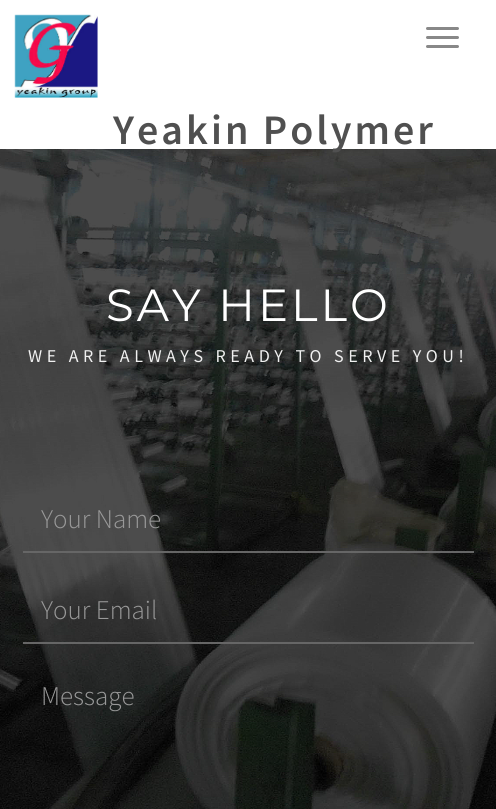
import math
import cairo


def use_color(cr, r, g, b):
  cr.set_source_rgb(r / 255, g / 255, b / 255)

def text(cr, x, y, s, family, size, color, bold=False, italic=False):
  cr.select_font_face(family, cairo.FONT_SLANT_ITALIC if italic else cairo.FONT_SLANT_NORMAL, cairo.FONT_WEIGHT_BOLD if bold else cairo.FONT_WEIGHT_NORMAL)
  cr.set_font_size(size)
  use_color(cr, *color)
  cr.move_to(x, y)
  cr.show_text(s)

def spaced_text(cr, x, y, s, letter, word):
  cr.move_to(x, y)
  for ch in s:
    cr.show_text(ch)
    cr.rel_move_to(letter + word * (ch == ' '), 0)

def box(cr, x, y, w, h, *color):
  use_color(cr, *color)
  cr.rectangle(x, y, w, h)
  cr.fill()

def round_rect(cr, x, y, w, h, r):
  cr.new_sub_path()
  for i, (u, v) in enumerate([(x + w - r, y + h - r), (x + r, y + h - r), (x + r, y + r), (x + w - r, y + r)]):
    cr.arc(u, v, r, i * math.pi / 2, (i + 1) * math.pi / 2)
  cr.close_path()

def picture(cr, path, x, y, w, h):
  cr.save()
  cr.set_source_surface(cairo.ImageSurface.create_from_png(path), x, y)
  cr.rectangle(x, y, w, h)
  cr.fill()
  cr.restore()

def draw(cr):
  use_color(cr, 255, 255, 255)
  cr.paint()
  picture(cr, "img_01.png", 14, 14, 84, 84)
  use_color(cr, 136, 136, 136)
  round_rect(cr, 426, 27, 33, 3, 1.5)
  cr.fill()
  round_rect(cr, 426, 36, 33, 3, 1.5)
  cr.fill()
  round_rect(cr, 426, 45, 33, 3, 1.5)
  cr.fill()
  picture(cr, "img_02.png", 0, 149, 496, 660)
  box(cr, 23, 551, 451, 2, 102, 102, 102)
  box(cr, 23, 642, 451, 2, 102, 102, 102)
  cr.select_font_face("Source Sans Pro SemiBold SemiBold")
  cr.set_font_size(42)
  use_color(cr, 80, 80, 80)
  spaced_text(cr, 113, 144, "Yeakin Polymer", 3, 0)
  cr.select_font_face("Montserrat")
  cr.set_font_size(45)
  use_color(cr, 255, 255, 255)
  spaced_text(cr, 106, 321, "SAY HELLO", 3, 0)
  cr.select_font_face("Source Sans Pro")
  cr.set_font_size(18)
  use_color(cr, 240, 240, 240)
  spaced_text(cr, 28, 362, "WE ARE ALWAYS READY TO SERVE YOU!", 4.5, 0)
  text(cr, 41, 528, "Your Name", "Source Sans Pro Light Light", 27, (153, 153, 153))
  text(cr, 41, 619, "Your Email", "Source Sans Pro Light Light", 27, (153, 153, 153))
  text(cr, 41, 705, "Message", "Source Sans Pro Light Light", 27, (153, 153, 153))


surface = cairo.ImageSurface(cairo.FORMAT_RGB24, 496, 809)
cr = cairo.Context(surface)
options = cairo.FontOptions()
options.set_hint_metrics(cairo.HINT_METRICS_OFF)
options.set_hint_style(cairo.HINT_STYLE_NONE)
cr.set_font_options(options)
cr.set_miter_limit(4)
draw(cr)
surface.write_to_png("out.png")
